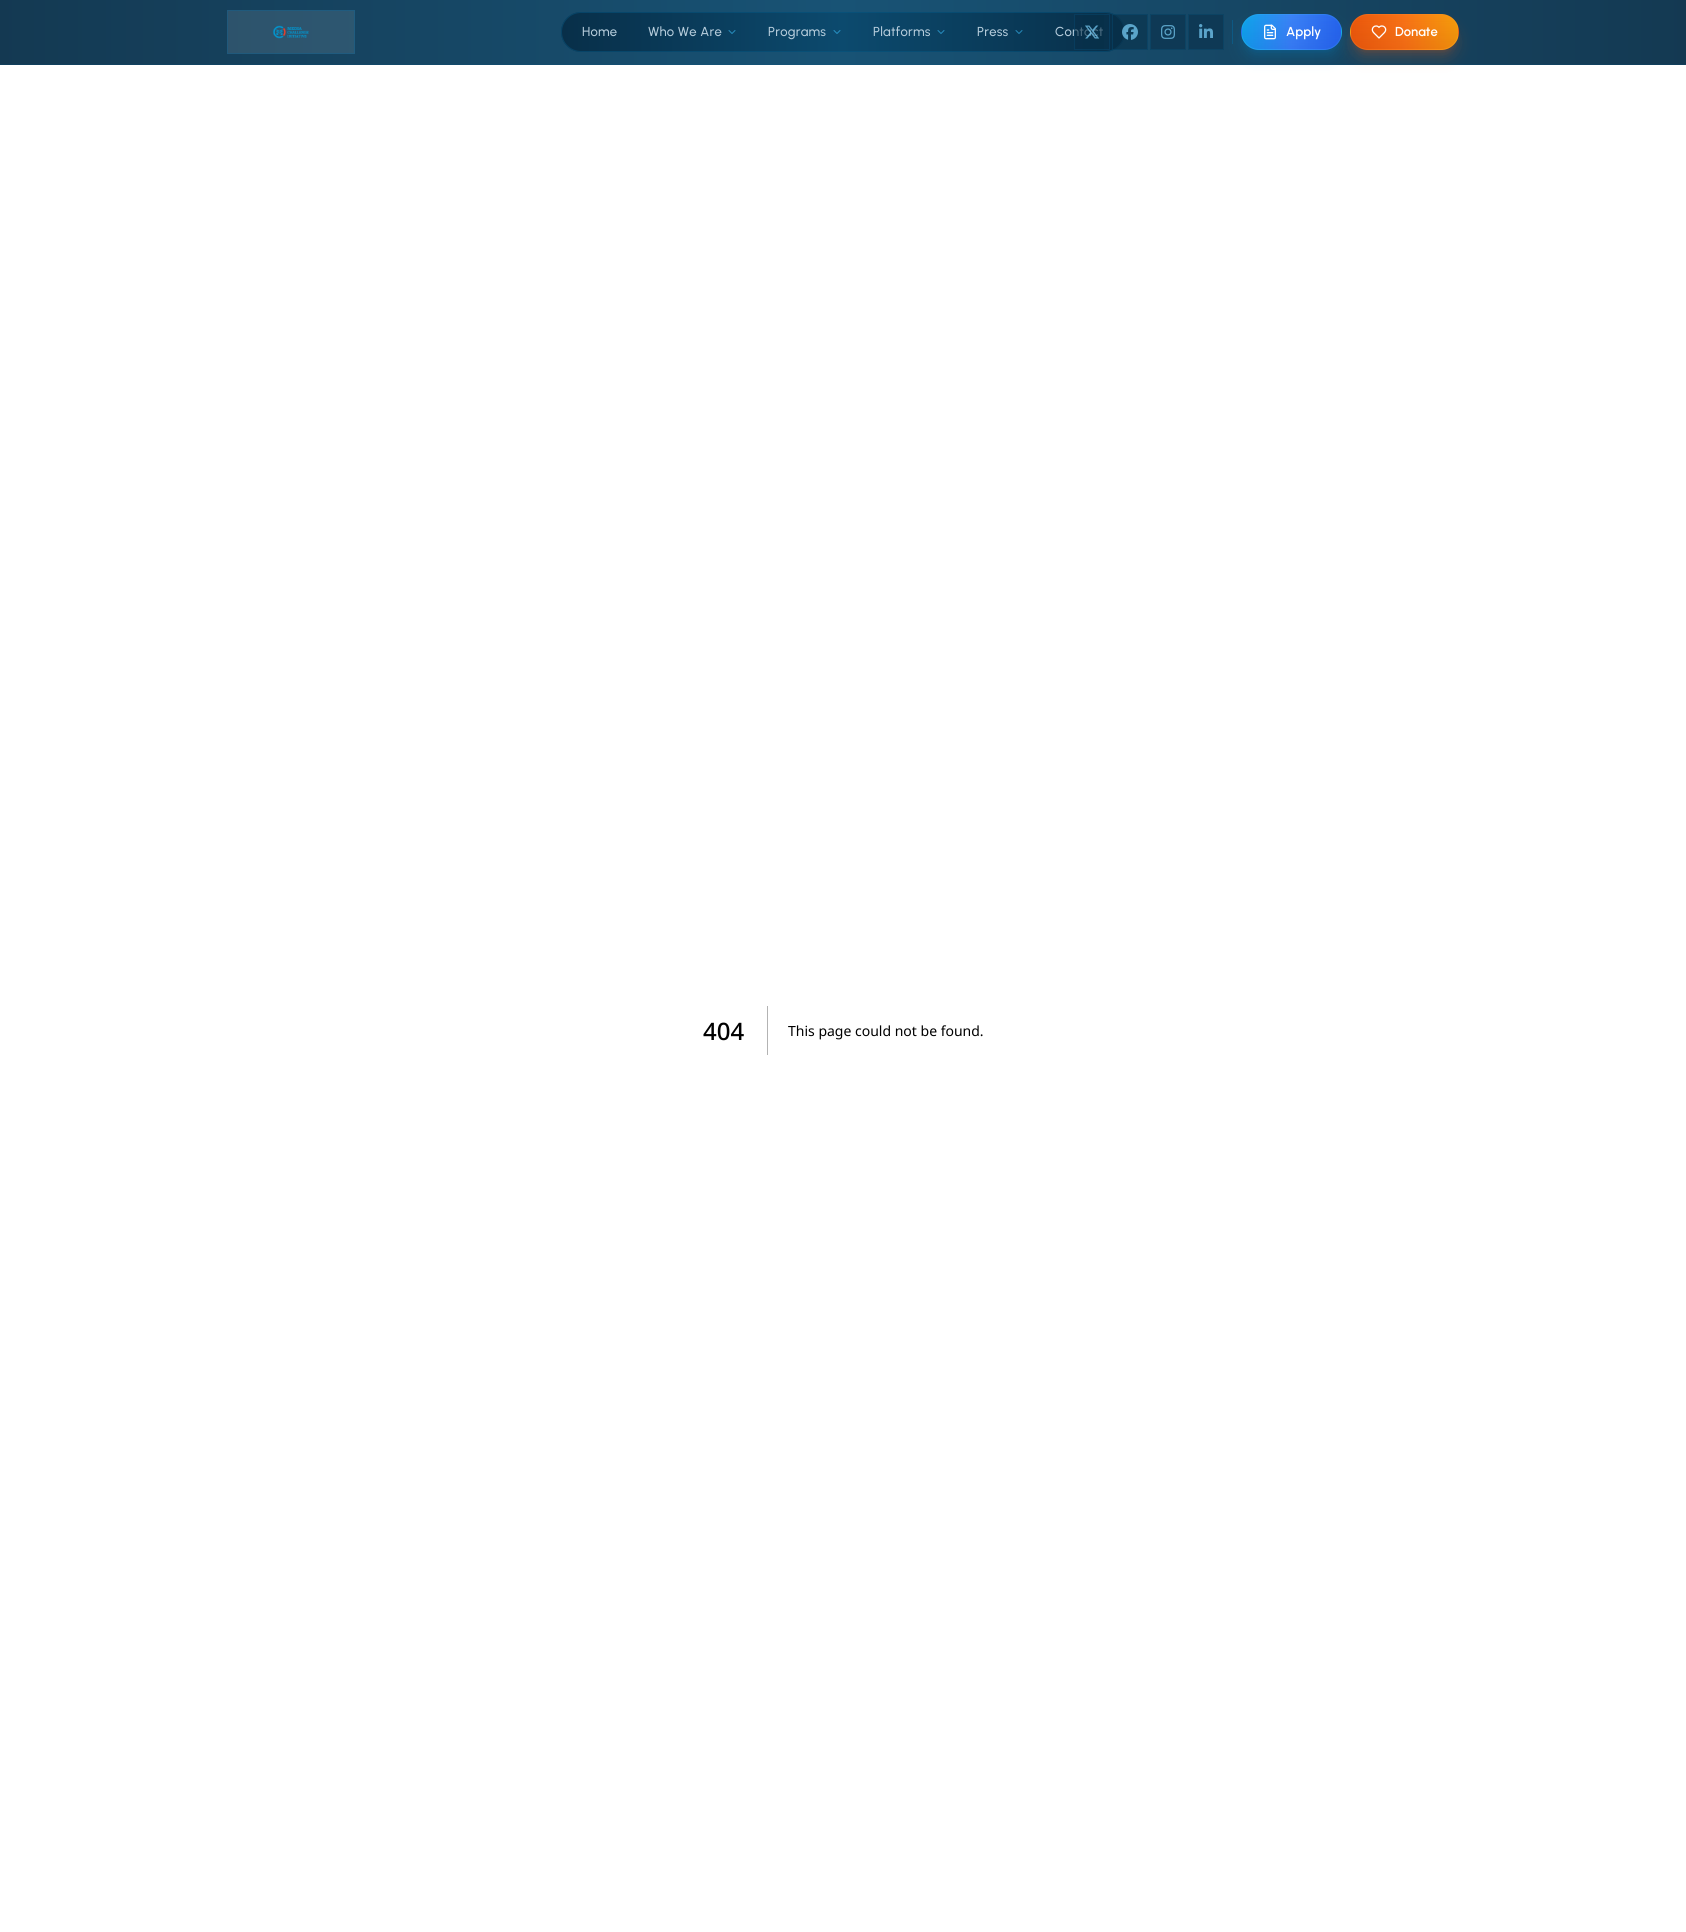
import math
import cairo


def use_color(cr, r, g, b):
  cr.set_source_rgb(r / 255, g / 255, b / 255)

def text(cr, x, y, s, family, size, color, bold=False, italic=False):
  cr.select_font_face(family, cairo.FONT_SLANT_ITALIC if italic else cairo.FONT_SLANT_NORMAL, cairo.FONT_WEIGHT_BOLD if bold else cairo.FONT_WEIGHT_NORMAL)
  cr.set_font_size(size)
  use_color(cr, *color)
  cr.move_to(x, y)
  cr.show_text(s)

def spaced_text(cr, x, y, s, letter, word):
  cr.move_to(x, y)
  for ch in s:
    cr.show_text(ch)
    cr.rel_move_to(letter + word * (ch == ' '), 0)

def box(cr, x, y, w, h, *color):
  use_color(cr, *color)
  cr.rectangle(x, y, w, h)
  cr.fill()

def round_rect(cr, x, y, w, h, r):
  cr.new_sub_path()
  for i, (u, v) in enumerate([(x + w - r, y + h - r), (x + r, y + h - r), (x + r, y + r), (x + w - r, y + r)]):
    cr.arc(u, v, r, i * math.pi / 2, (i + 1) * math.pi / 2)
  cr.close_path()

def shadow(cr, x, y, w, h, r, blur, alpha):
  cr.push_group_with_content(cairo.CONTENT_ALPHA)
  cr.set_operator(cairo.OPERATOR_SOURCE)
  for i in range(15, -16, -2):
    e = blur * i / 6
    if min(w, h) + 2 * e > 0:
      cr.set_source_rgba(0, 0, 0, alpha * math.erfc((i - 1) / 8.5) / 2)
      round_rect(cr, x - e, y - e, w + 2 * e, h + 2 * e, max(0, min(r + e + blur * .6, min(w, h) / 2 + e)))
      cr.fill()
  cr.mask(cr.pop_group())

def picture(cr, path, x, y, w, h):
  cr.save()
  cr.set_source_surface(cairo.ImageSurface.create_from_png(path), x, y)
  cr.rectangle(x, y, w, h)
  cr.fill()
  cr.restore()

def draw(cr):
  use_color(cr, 255, 255, 255)
  cr.paint()
  gradient = cairo.LinearGradient(0, 32, 1686, 32)
  gradient.add_color_stop_rgba(0, 0.078, 0.224, 0.322, 1)
  gradient.add_color_stop_rgba(0.5, 0.094, 0.325, 0.459, 1)
  gradient.add_color_stop_rgba(1, 0.078, 0.224, 0.322, 1)
  cr.set_source(gradient)
  cr.rectangle(0, 0, 1686, 64)
  cr.fill()
  gradient = cairo.LinearGradient(0, 32, 1686, 32)
  gradient.add_color_stop_rgba(0, 0.173, 0.302, 0.388, 1)
  gradient.add_color_stop_rgba(0.5, 0.184, 0.392, 0.514, 1)
  gradient.add_color_stop_rgba(1, 0.173, 0.302, 0.388, 1)
  cr.set_source(gradient)
  cr.rectangle(227, 10, 128, 44)
  cr.fill()
  gradient = cairo.LinearGradient(0, 32, 1686, 32)
  gradient.add_color_stop_rgba(0, 0.067, 0.247, 0.361, 1)
  gradient.add_color_stop_rgba(0.5, 0.082, 0.329, 0.471, 1)
  gradient.add_color_stop_rgba(1, 0.067, 0.247, 0.361, 1)
  cr.set_source(gradient)
  cr.rectangle(0, 64, 1686, 1)
  cr.fill()
  cr.rectangle(227.5, 10.5, 127, 43)
  cr.set_source_rgba(0.012, 0.412, 0.631, 0.3)
  cr.set_line_width(1)
  cr.stroke()
  picture(cr, "img_01.png", 273, 25, 36, 14)
  cr.save()
  round_rect(cr, 561, 12, 564, 40, 20)
  cr.clip()
  gradient = cairo.LinearGradient(-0.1, 32, 562, 32)
  gradient.add_color_stop_rgba(0, 0.031, 0.184, 0.286, 1)
  gradient.add_color_stop_rgba(0.5, 0.047, 0.29, 0.431, 1)
  gradient.add_color_stop_rgba(1, 0.031, 0.184, 0.286, 1)
  cr.set_source(gradient)
  cr.rectangle(561, 26, 1, 12)
  cr.fill()
  gradient = cairo.LinearGradient(562, 32, 1124, 32)
  gradient.add_color_stop_rgba(0, 0.031, 0.184, 0.286, 1)
  gradient.add_color_stop_rgba(0.5, 0.047, 0.29, 0.431, 1)
  gradient.add_color_stop_rgba(1, 0.031, 0.184, 0.286, 1)
  cr.set_source(gradient)
  cr.rectangle(562, 12, 562, 40)
  cr.fill()
  gradient = cairo.LinearGradient(1124, 32, 1686, 32)
  gradient.add_color_stop_rgba(0, 0.031, 0.184, 0.286, 1)
  gradient.add_color_stop_rgba(0.5, 0.047, 0.29, 0.431, 1)
  gradient.add_color_stop_rgba(1, 0.031, 0.184, 0.286, 1)
  cr.set_source(gradient)
  cr.rectangle(1124, 26, 1, 12)
  cr.fill()
  cr.restore()
  round_rect(cr, 561.5, 12.5, 563, 39, 19.5)
  cr.set_source_rgba(0.027, 0.349, 0.522, 0.5)
  cr.stroke()
  cr.new_path()
  cr.move_to(729, 30.5)
  cr.line_to(732, 33.5)
  cr.line_to(735, 30.5)
  use_color(cr, 38, 139, 187)
  cr.set_line_cap(cairo.LINE_CAP_ROUND)
  cr.set_line_join(cairo.LINE_JOIN_ROUND)
  cr.stroke()
  cr.new_path()
  cr.move_to(834, 30.5)
  cr.line_to(837, 33.5)
  cr.line_to(840, 30.5)
  use_color(cr, 38, 143, 192)
  cr.stroke()
  cr.new_path()
  cr.move_to(938, 30.5)
  cr.line_to(941, 33.5)
  cr.line_to(944, 30.5)
  use_color(cr, 38, 139, 188)
  cr.stroke()
  cr.new_path()
  cr.move_to(1016, 30.5)
  cr.line_to(1019, 33.5)
  cr.line_to(1022, 30.5)
  use_color(cr, 37, 136, 184)
  cr.stroke()
  cr.set_source_rgba(0.031, 0.184, 0.286, 0.6)
  cr.rectangle(1112, 14, 36, 36)
  cr.fill()
  cr.rectangle(1112.5, 14.5, 35, 35)
  cr.set_source_rgba(0.027, 0.349, 0.522, 0.3)
  cr.set_line_cap(cairo.LINE_CAP_BUTT)
  cr.set_line_join(cairo.LINE_JOIN_MITER)
  cr.stroke()
  picture(cr, "img_03.png", 1122, 24, 16, 16)
  use_color(cr, 14, 57, 85)
  cr.rectangle(1150.5, 14.5, 35, 35)
  cr.fill_preserve()
  use_color(cr, 12, 67, 99)
  cr.stroke()
  picture(cr, "img_04.png", 1161, 25, 14, 14)
  use_color(cr, 14, 57, 85)
  cr.rectangle(1188.5, 14.5, 35, 35)
  cr.fill_preserve()
  use_color(cr, 12, 67, 99)
  cr.stroke()
  picture(cr, "img_05.png", 1199, 24, 14, 14)
  box(cr, 1232, 20, 1, 24, 13, 88, 131)
  use_color(cr, 2, 132, 199)
  shadow(cr, 1245, 22, 93, 28, 14, 3, 0.25)
  shadow(cr, 1244, 27, 95, 30, 15, 7.5, 0.25)
  cr.save()
  round_rect(cr, 1241, 14, 101, 36, 18)
  cr.clip()
  gradient = cairo.LinearGradient(1143, 32, 1242, 32)
  gradient.add_color_stop_rgba(0, 0.055, 0.647, 0.914, 1)
  gradient.add_color_stop_rgba(0.5, 0.231, 0.51, 0.965, 1)
  gradient.add_color_stop_rgba(1, 0.145, 0.388, 0.922, 1)
  cr.set_source(gradient)
  cr.rectangle(1241, 26, 1, 12)
  cr.fill()
  gradient = cairo.LinearGradient(1242, 32, 1341, 32)
  gradient.add_color_stop_rgba(0, 0.055, 0.647, 0.914, 1)
  gradient.add_color_stop_rgba(0.5, 0.231, 0.51, 0.965, 1)
  gradient.add_color_stop_rgba(1, 0.145, 0.388, 0.922, 1)
  cr.set_source(gradient)
  cr.rectangle(1242, 14, 99, 36)
  cr.fill()
  gradient = cairo.LinearGradient(1341, 32, 1440, 32)
  gradient.add_color_stop_rgba(0, 0.055, 0.647, 0.914, 1)
  gradient.add_color_stop_rgba(0.5, 0.231, 0.51, 0.965, 1)
  gradient.add_color_stop_rgba(1, 0.145, 0.388, 0.922, 1)
  cr.set_source(gradient)
  cr.rectangle(1341, 26, 1, 12)
  cr.fill()
  cr.restore()
  round_rect(cr, 1241.5, 14.5, 100, 35, 17.5)
  cr.set_source_rgba(0.22, 0.741, 0.973, 0.2)
  cr.stroke()
  gradient = cairo.LinearGradient(1292, 49, 1292, 15)
  gradient.add_color_stop_rgba(0, 0.114, 0.306, 0.847, 0.2)
  gradient.add_color_stop_rgba(1, 0.114, 0.306, 0.847, 0)
  cr.set_source(gradient)
  round_rect(cr, 1242, 15, 99, 34, 17)
  cr.fill()
  picture(cr, "img_06.png", 1264, 24, 12, 16)
  use_color(cr, 234, 88, 12)
  shadow(cr, 1354, 22, 101, 28, 14, 3, 0.25)
  shadow(cr, 1353, 27, 103, 30, 15, 7.5, 0.25)
  cr.save()
  round_rect(cr, 1350, 14, 109, 36, 18)
  cr.clip()
  gradient = cairo.LinearGradient(1244, 32, 1351, 32)
  gradient.add_color_stop_rgba(0, 0.918, 0.345, 0.047, 1)
  gradient.add_color_stop_rgba(0.5, 0.976, 0.451, 0.086, 1)
  gradient.add_color_stop_rgba(1, 0.961, 0.62, 0.043, 1)
  cr.set_source(gradient)
  cr.rectangle(1350, 26, 1, 12)
  cr.fill()
  gradient = cairo.LinearGradient(1351, 32, 1458, 32)
  gradient.add_color_stop_rgba(0, 0.918, 0.345, 0.047, 1)
  gradient.add_color_stop_rgba(0.5, 0.976, 0.451, 0.086, 1)
  gradient.add_color_stop_rgba(1, 0.961, 0.62, 0.043, 1)
  cr.set_source(gradient)
  cr.rectangle(1351, 14, 107, 36)
  cr.fill()
  gradient = cairo.LinearGradient(1458, 32, 1565, 32)
  gradient.add_color_stop_rgba(0, 0.918, 0.345, 0.047, 1)
  gradient.add_color_stop_rgba(0.5, 0.976, 0.451, 0.086, 1)
  gradient.add_color_stop_rgba(1, 0.961, 0.62, 0.043, 1)
  cr.set_source(gradient)
  cr.rectangle(1458, 26, 1, 12)
  cr.fill()
  cr.restore()
  round_rect(cr, 1350.5, 14.5, 108, 35, 17.5)
  cr.set_source_rgba(0.984, 0.573, 0.235, 0.2)
  cr.stroke()
  gradient = cairo.LinearGradient(1405, 49, 1405, 15)
  gradient.add_color_stop_rgba(0, 0.761, 0.255, 0.047, 0.2)
  gradient.add_color_stop_rgba(1, 0.761, 0.255, 0.047, 0)
  cr.set_source(gradient)
  round_rect(cr, 1351, 15, 107, 34, 17)
  cr.fill()
  picture(cr, "img_07.png", 1371, 25, 16, 14)
  box(cr, 767, 1006, 1, 49, 179, 179, 179)
  cr.select_font_face("Urbanist Medium")
  cr.set_font_size(13)
  use_color(cr, 181, 204, 219)
  spaced_text(cr, 582, 36, "Home", 0.25, 0)
  spaced_text(cr, 648, 36, "Who We Are", 0.25, 0)
  spaced_text(cr, 768, 36, "Programs", 0.25, 0)
  spaced_text(cr, 873, 36, "Platforms", 0.25, 0)
  spaced_text(cr, 977, 36, "Press", 0.25, 0)
  spaced_text(cr, 1055, 36, "Contact", 0.25, 0)
  cr.set_source_rgba(0.031, 0.184, 0.286, 0.6)
  cr.rectangle(1074, 14, 30, 36)
  cr.fill()
  cr.rectangle(1074.5, 14.5, 35, 35)
  cr.set_source_rgba(0.027, 0.349, 0.522, 0.3)
  cr.stroke()
  picture(cr, "img_02.png", 1085, 25, 15, 14)
  text(cr, 1286, 36, "Apply", "Urbanist SemiBold", 13, (255, 255, 255))
  text(cr, 1395, 36, "Donate", "Urbanist SemiBold", 13, (255, 255, 255))
  text(cr, 703, 1040, "404", "Noto Sans Medium", 24, (0, 0, 0))
  text(cr, 788, 1036, "This page could not be found.", "Noto Sans", 14, (0, 0, 0))


surface = cairo.ImageSurface(cairo.FORMAT_RGB24, 1686, 1932)
cr = cairo.Context(surface)
options = cairo.FontOptions()
options.set_hint_metrics(cairo.HINT_METRICS_OFF)
options.set_hint_style(cairo.HINT_STYLE_NONE)
cr.set_font_options(options)
cr.set_miter_limit(4)
draw(cr)
surface.write_to_png("out.png")
